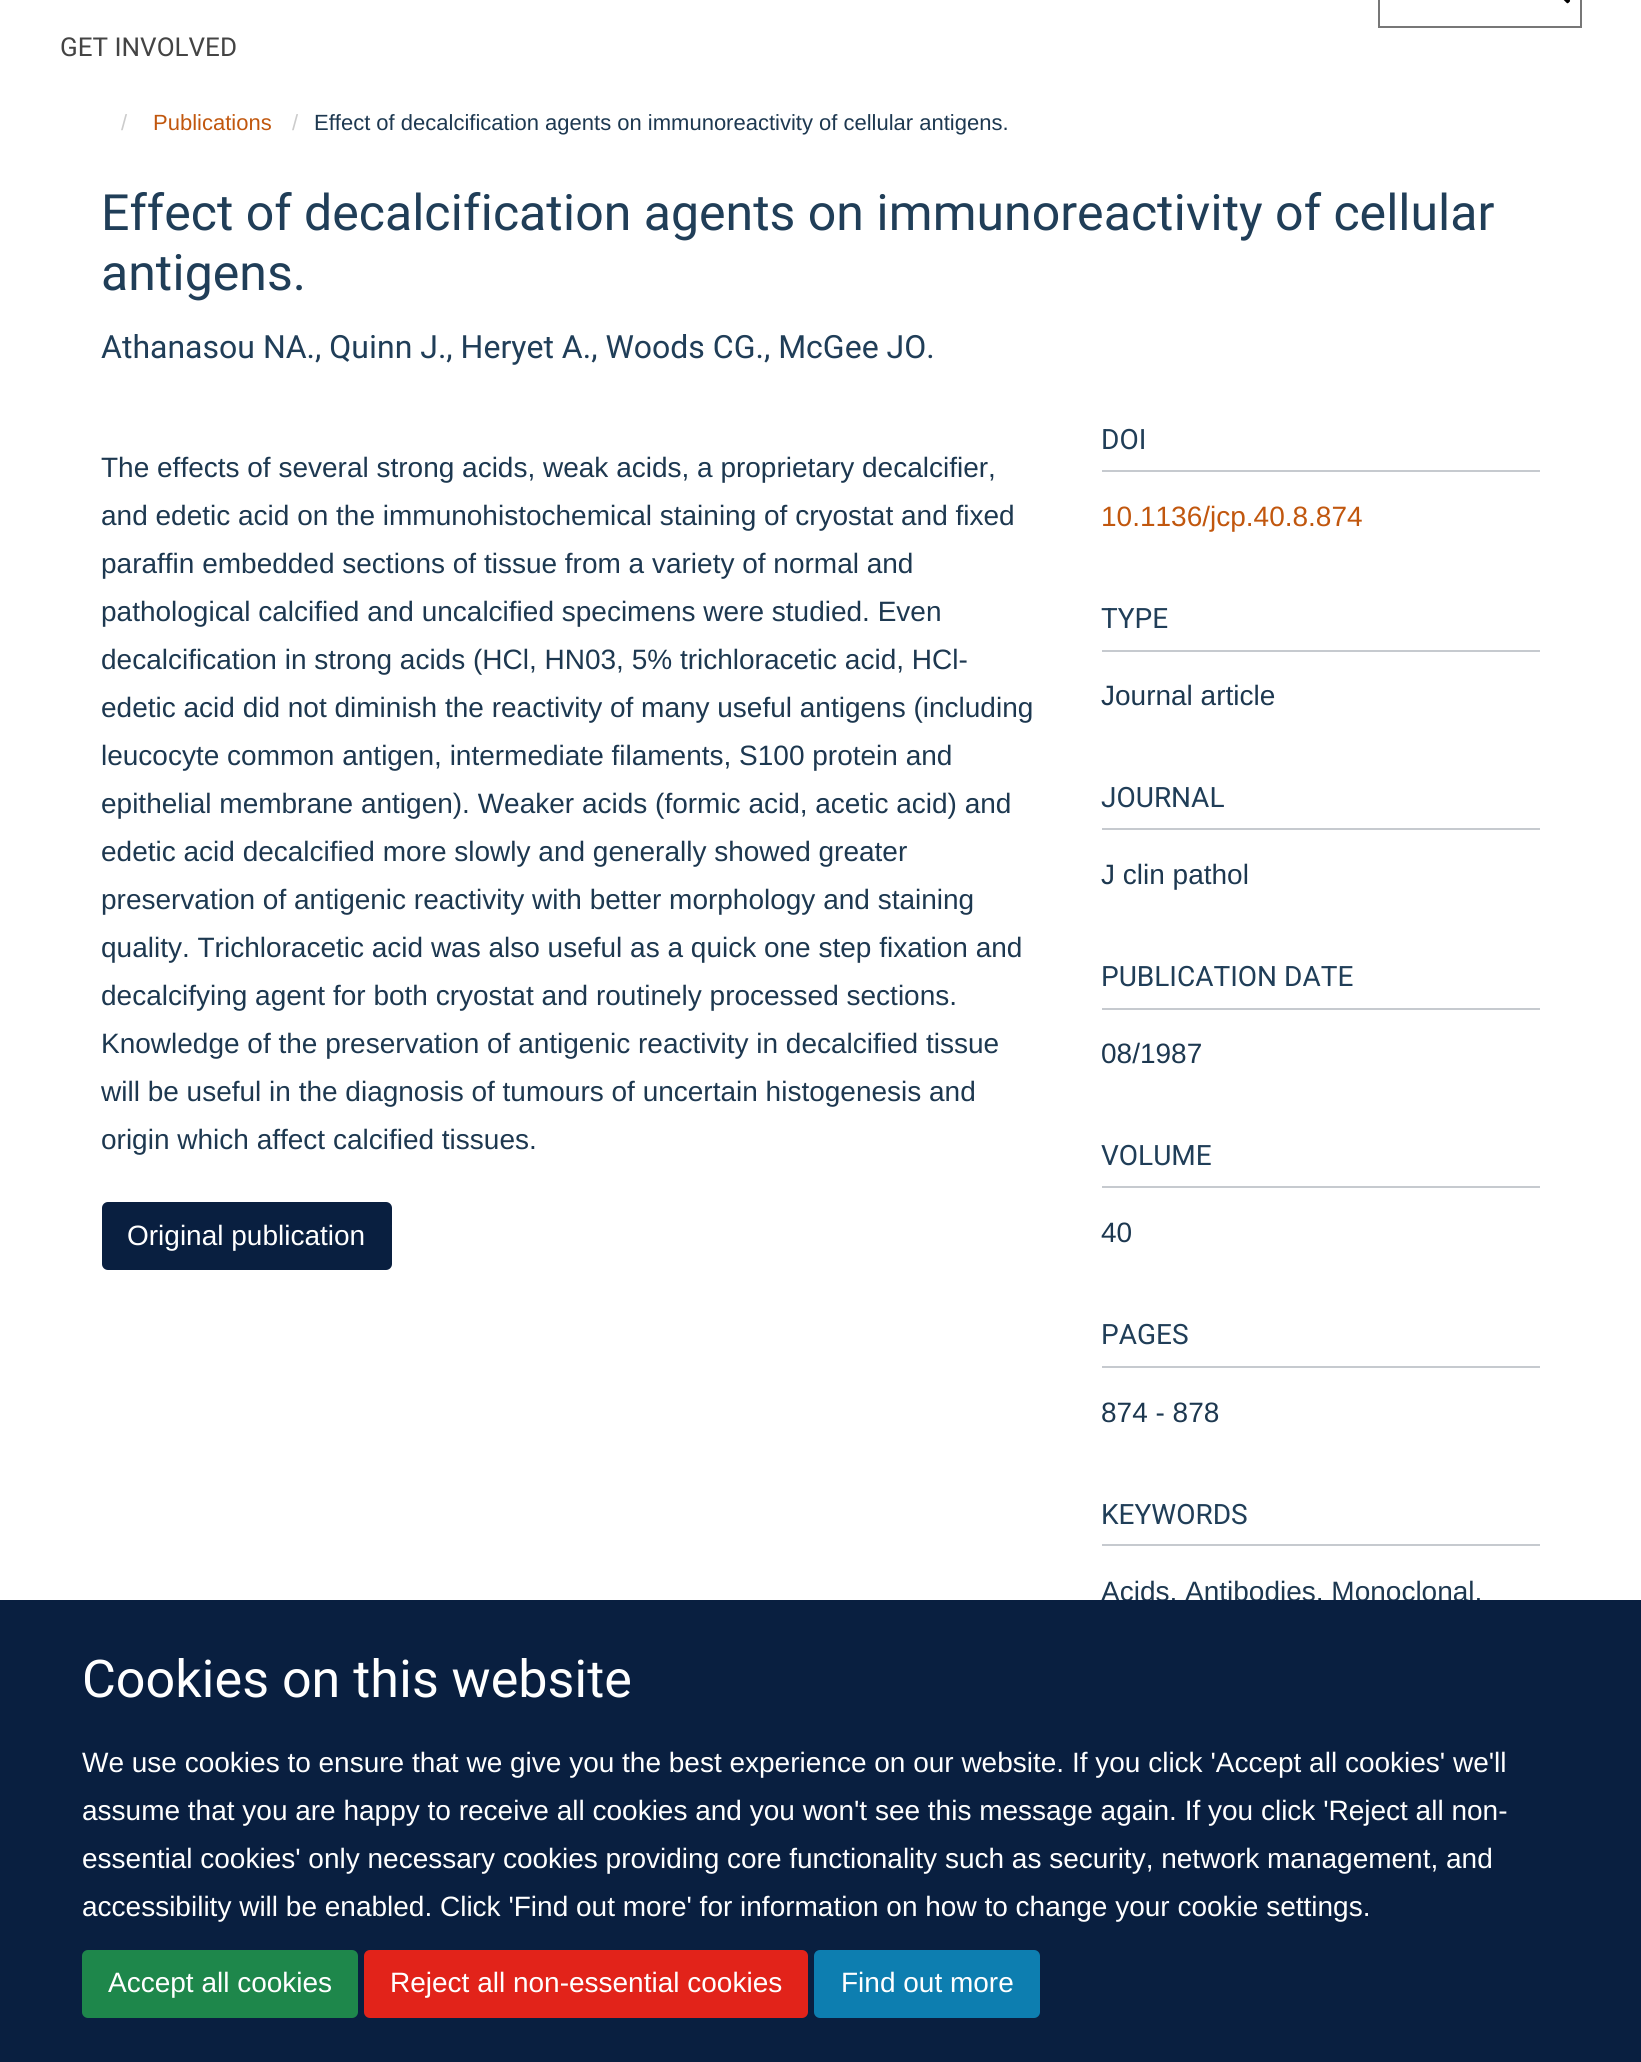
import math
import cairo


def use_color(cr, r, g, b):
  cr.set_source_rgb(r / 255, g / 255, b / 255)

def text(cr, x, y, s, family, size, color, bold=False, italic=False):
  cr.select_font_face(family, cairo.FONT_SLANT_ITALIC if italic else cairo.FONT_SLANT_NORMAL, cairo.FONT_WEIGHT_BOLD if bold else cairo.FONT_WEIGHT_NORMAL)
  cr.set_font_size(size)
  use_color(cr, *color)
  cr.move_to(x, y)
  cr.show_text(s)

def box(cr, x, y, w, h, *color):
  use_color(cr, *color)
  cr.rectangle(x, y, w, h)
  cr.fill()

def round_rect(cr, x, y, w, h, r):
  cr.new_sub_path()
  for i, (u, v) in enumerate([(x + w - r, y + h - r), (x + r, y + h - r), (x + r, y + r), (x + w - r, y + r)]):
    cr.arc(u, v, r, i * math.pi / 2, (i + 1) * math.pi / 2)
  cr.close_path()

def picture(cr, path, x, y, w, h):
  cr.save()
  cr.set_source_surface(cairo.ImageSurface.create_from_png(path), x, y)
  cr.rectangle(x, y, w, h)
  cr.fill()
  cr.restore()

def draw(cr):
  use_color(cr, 255, 255, 255)
  cr.paint()
  cr.rectangle(1379, -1, 202, 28)
  use_color(cr, 119, 119, 119)
  cr.stroke()
  picture(cr, "img_01.png", 1563, 0, 8, 4)
  use_color(cr, 9, 31, 64)
  round_rect(cr, 103, 1203, 288, 66, 5)
  cr.fill_preserve()
  cr.stroke()
  box(cr, 1102, 470, 438, 2, 198, 202, 207)
  box(cr, 1102, 650, 438, 2, 198, 202, 207)
  box(cr, 1102, 828, 438, 2, 198, 202, 207)
  box(cr, 1102, 1008, 438, 2, 198, 202, 207)
  box(cr, 1102, 1186, 438, 2, 198, 202, 207)
  box(cr, 1102, 1366, 438, 2, 198, 202, 207)
  box(cr, 1102, 1544, 438, 2, 198, 202, 207)
  text(cr, 60, 56, "GET INVOLVED", "Heebo", 26, (68, 68, 68))
  text(cr, 121, 130, "/", "Liberation Sans", 22, (204, 204, 204))
  text(cr, 153, 130, "Publications", "Liberation Sans", 22, (193, 87, 14))
  text(cr, 292, 130, "/", "Liberation Sans", 22, (204, 204, 204))
  text(cr, 314, 130, "Effect of decalcification agents on immunoreactivity of cellular antigens.", "Liberation Sans", 22, (29, 56, 80))
  text(cr, 101, 230, "Effect of decalcification agents on immunoreactivity of cellular", "Heebo", 50, (32, 62, 88))
  text(cr, 101, 290, "antigens.", "Heebo", 50, (32, 62, 88))
  text(cr, 101, 358, "Athanasou NA., Quinn J., Heryet A., Woods CG., McGee JO.", "Heebo", 32, (32, 62, 88))
  text(cr, 101, 477, "The effects of several strong acids, weak acids, a proprietary decalcifier,", "Liberation Sans", 28, (29, 56, 80))
  text(cr, 101, 525, "and edetic acid on the immunohistochemical staining of cryostat and fixed", "Liberation Sans", 28, (29, 56, 80))
  text(cr, 101, 573, "paraffin embedded sections of tissue from a variety of normal and", "Liberation Sans", 28, (29, 56, 80))
  text(cr, 101, 621, "pathological calcified and uncalcified specimens were studied. Even", "Liberation Sans", 28, (29, 56, 80))
  text(cr, 101, 669, "decalcification in strong acids (HCl, HN03, 5% trichloracetic acid, HCl-", "Liberation Sans", 28, (29, 56, 80))
  text(cr, 101, 717, "edetic acid did not diminish the reactivity of many useful antigens (including", "Liberation Sans", 28, (29, 56, 80))
  text(cr, 101, 765, "leucocyte common antigen, intermediate filaments, S100 protein and", "Liberation Sans", 28, (29, 56, 80))
  text(cr, 101, 813, "epithelial membrane antigen). Weaker acids (formic acid, acetic acid) and", "Liberation Sans", 28, (29, 56, 80))
  text(cr, 101, 861, "edetic acid decalcified more slowly and generally showed greater", "Liberation Sans", 28, (29, 56, 80))
  text(cr, 101, 909, "preservation of antigenic reactivity with better morphology and staining", "Liberation Sans", 28, (29, 56, 80))
  text(cr, 101, 957, "quality. Trichloracetic acid was also useful as a quick one step fixation and", "Liberation Sans", 28, (29, 56, 80))
  text(cr, 101, 1005, "decalcifying agent for both cryostat and routinely processed sections.", "Liberation Sans", 28, (29, 56, 80))
  text(cr, 101, 1053, "Knowledge of the preservation of antigenic reactivity in decalcified tissue", "Liberation Sans", 28, (29, 56, 80))
  text(cr, 101, 1101, "will be useful in the diagnosis of tumours of uncertain histogenesis and", "Liberation Sans", 28, (29, 56, 80))
  text(cr, 101, 1149, "origin which affect calcified tissues.", "Liberation Sans", 28, (29, 56, 80))
  text(cr, 127, 1245, "Original publication", "Liberation Sans", 28, (255, 255, 255))
  text(cr, 1101, 449, "DOI", "Heebo", 28, (32, 62, 88))
  text(cr, 1101, 526, "10.1136/jcp.40.8.874", "Liberation Sans", 28, (193, 87, 14))
  text(cr, 1101, 628, "TYPE", "Heebo", 28, (32, 62, 88))
  text(cr, 1101, 705, "Journal article", "Liberation Sans", 28, (29, 56, 80))
  text(cr, 1101, 807, "JOURNAL", "Heebo", 28, (32, 62, 88))
  text(cr, 1101, 884, "J clin pathol", "Liberation Sans", 28, (29, 56, 80))
  text(cr, 1101, 986, "PUBLICATION DATE", "Heebo", 28, (32, 62, 88))
  text(cr, 1101, 1063, "08/1987", "Liberation Sans", 28, (29, 56, 80))
  text(cr, 1101, 1165, "VOLUME", "Heebo", 28, (32, 62, 88))
  text(cr, 1101, 1242, "40", "Liberation Sans", 28, (29, 56, 80))
  text(cr, 1101, 1344, "PAGES", "Heebo", 28, (32, 62, 88))
  text(cr, 1101, 1422, "874 - 878", "Liberation Sans", 28, (29, 56, 80))
  text(cr, 1101, 1524, "KEYWORDS", "Heebo", 28, (32, 62, 88))
  text(cr, 1101, 1601, "Acids, Antibodies, Monoclonal,", "Liberation Sans", 28, (29, 56, 80))
  box(cr, 0, 1600, 1641, 462, 9, 31, 64)
  text(cr, 82, 1697, "Cookies on this website", "Heebo", 52, (255, 255, 255))
  text(cr, 82, 1772, "We use cookies to ensure that we give you the best experience on our website. If you click 'Accept all cookies' we'll", "Liberation Sans", 28, (255, 255, 255))
  text(cr, 82, 1820, "assume that you are happy to receive all cookies and you won't see this message again. If you click 'Reject all non-", "Liberation Sans", 28, (255, 255, 255))
  text(cr, 82, 1868, "essential cookies' only necessary cookies providing core functionality such as security, network management, and", "Liberation Sans", 28, (255, 255, 255))
  text(cr, 82, 1916, "accessibility will be enabled. Click 'Find out more' for information on how to change your cookie settings.", "Liberation Sans", 28, (255, 255, 255))
  use_color(cr, 30, 135, 75)
  round_rect(cr, 83, 1951, 274, 66, 5)
  cr.fill_preserve()
  cr.stroke()
  text(cr, 108, 1992, "Accept all cookies", "Liberation Sans", 28, (255, 255, 255))
  use_color(cr, 226, 35, 26)
  round_rect(cr, 365, 1951, 442, 66, 5)
  cr.fill_preserve()
  cr.stroke()
  text(cr, 390, 1992, "Reject all non-essential cookies", "Liberation Sans", 28, (255, 255, 255))
  use_color(cr, 13, 126, 176)
  round_rect(cr, 815, 1951, 224, 66, 5)
  cr.fill_preserve()
  cr.stroke()
  text(cr, 841, 1992, "Find out more", "Liberation Sans", 28, (255, 255, 255))


surface = cairo.ImageSurface(cairo.FORMAT_RGB24, 1641, 2062)
cr = cairo.Context(surface)
options = cairo.FontOptions()
options.set_hint_metrics(cairo.HINT_METRICS_OFF)
options.set_hint_style(cairo.HINT_STYLE_NONE)
cr.set_font_options(options)
cr.set_miter_limit(4)
draw(cr)
surface.write_to_png("out.png")
